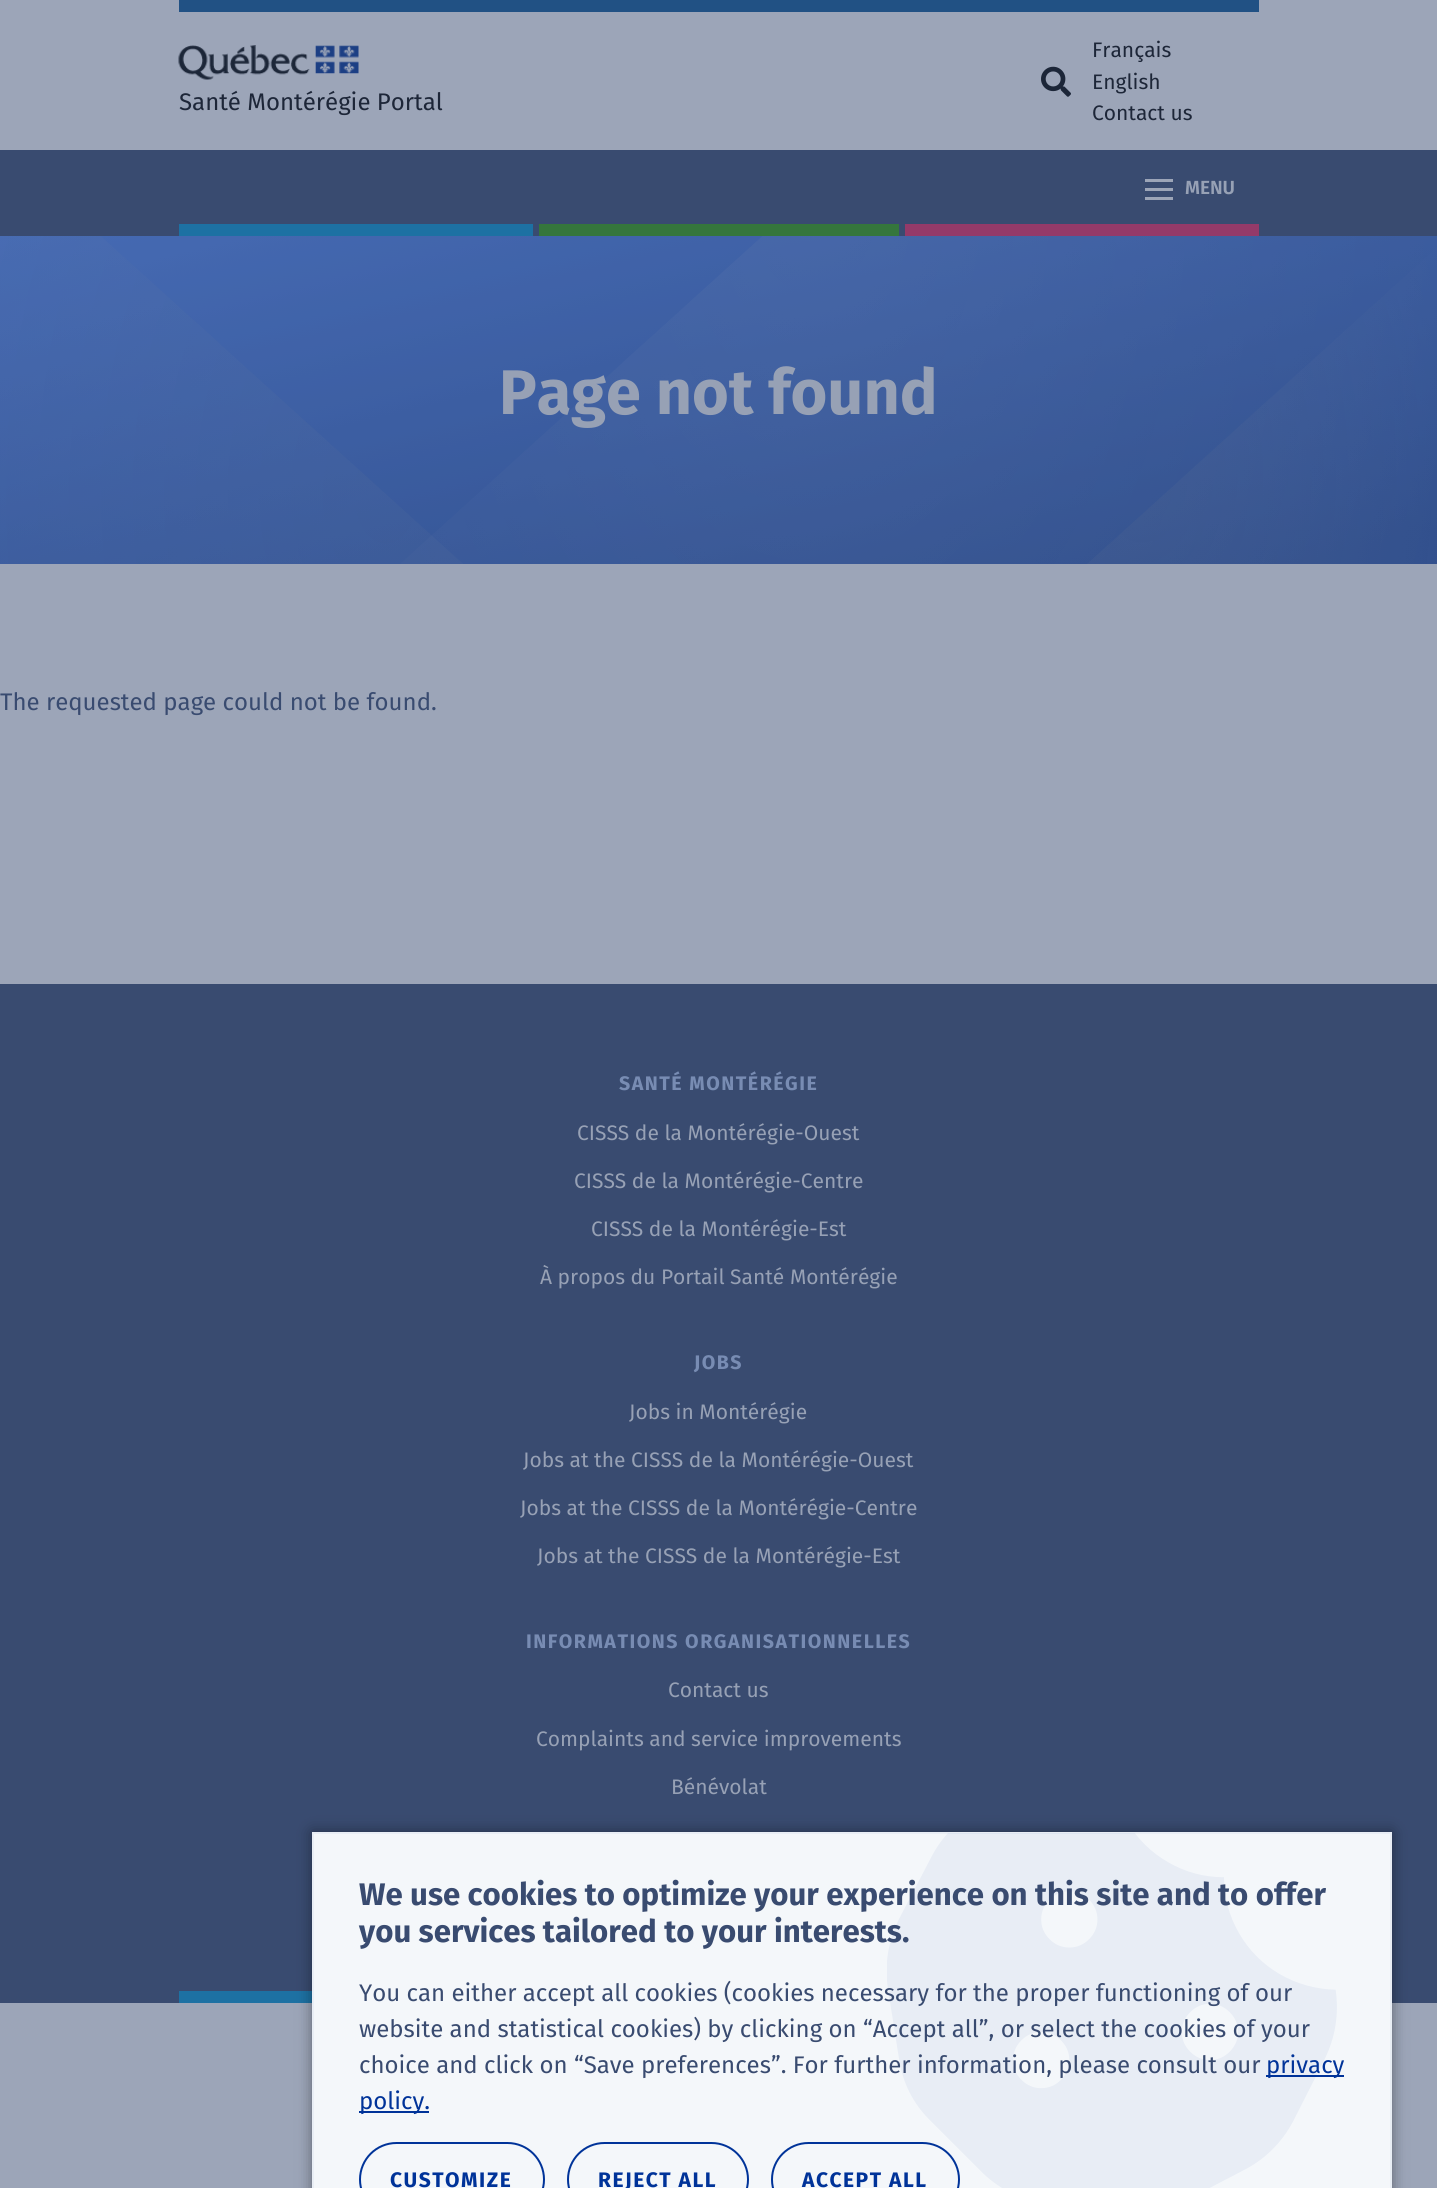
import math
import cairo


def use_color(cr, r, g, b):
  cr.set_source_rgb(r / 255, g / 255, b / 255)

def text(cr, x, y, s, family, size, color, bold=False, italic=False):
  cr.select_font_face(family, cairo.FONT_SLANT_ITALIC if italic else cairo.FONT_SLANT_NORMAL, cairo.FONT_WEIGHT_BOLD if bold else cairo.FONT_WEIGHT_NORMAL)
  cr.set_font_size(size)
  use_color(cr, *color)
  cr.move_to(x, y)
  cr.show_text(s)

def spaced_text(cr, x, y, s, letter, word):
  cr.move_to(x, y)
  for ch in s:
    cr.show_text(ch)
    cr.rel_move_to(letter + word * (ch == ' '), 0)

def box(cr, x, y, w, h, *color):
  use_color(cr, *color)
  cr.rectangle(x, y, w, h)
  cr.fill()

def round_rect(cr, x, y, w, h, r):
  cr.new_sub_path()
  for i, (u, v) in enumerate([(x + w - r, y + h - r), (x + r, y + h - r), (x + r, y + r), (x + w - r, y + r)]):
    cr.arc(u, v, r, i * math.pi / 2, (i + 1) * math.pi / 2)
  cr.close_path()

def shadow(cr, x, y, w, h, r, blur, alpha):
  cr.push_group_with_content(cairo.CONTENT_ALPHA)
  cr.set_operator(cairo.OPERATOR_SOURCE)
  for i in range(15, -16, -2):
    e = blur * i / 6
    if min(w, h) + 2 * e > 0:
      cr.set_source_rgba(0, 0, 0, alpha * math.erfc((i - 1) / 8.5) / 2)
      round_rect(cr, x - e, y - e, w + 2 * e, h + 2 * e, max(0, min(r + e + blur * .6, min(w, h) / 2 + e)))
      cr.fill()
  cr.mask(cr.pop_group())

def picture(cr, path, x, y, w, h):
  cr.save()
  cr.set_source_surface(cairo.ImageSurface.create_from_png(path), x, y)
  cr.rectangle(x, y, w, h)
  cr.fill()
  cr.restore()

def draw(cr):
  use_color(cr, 156, 165, 184)
  cr.paint()
  box(cr, 179, 0, 1080, 12, 33, 81, 132)
  picture(cr, "img_01.png", 1041, 66, 30, 31)
  picture(cr, "img_02.png", 178, 45, 181, 35)
  box(cr, 0, 150, 1437, 86, 57, 75, 112)
  box(cr, 1145, 179, 28, 3, 156, 165, 184)
  box(cr, 1145, 188, 28, 3, 156, 165, 184)
  box(cr, 1145, 197, 28, 3, 156, 165, 184)
  box(cr, 179, 224, 354, 12, 29, 113, 163)
  box(cr, 539, 224, 360, 12, 53, 118, 60)
  box(cr, 905, 224, 354, 12, 148, 58, 105)
  picture(cr, "img_03.png", 0, 236, 1437, 328)
  box(cr, 0, 984, 1437, 1019, 57, 75, 112)
  box(cr, 179, 1991, 133, 12, 29, 113, 163)
  use_color(cr, 0, 0, 0)
  shadow(cr, 312, 1832, 1080, 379, 0, 7.5, 0.4)
  use_color(cr, 244, 247, 250)
  cr.rectangle(313, 1833, 1078, 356)
  cr.fill_preserve()
  use_color(cr, 233, 238, 245)
  cr.stroke()
  picture(cr, "img_04.png", 887, 1833, 450, 355)
  box(cr, 1266, 2075, 78, 2, 0, 51, 153)
  box(cr, 359, 2111, 70, 2, 0, 51, 153)
  round_rect(cr, 360, 2143, 184, 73, 36.5)
  cr.stroke()
  round_rect(cr, 568, 2143, 180, 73, 36.5)
  cr.stroke()
  round_rect(cr, 772, 2143, 187, 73, 36.5)
  cr.stroke()
  text(cr, 1092, 57, "Français", "Fira Sans", 21, (29, 38, 56))
  text(cr, 1092, 89, "English", "Fira Sans", 21, (29, 38, 56))
  text(cr, 1092, 120, "Contact us", "Fira Sans", 21, (29, 38, 56))
  text(cr, 179, 110, "Santé Montérégie Portal", "Fira Sans", 24, (29, 38, 56))
  text(cr, 1185, 194, "MENU", "Fira Sans SemiBold", 19, (151, 161, 181))
  text(cr, 499, 414, "Page not found", "Fira Sans", 63, (151, 161, 181), bold=True)
  text(cr, 0, 710, "The requested page could not be found.", "Fira Sans", 24, (57, 75, 112))
  cr.select_font_face("Fira Sans", cairo.FONT_SLANT_NORMAL, cairo.FONT_WEIGHT_BOLD)
  cr.set_font_size(19.6)
  use_color(cr, 120, 140, 179)
  spaced_text(cr, 619, 1090, "SANTÉ MONTÉRÉGIE", 1.5, 0)
  text(cr, 577, 1140, "CISSS de la Montérégie-Ouest", "Fira Sans", 21, (151, 161, 181))
  text(cr, 574, 1188, "CISSS de la Montérégie-Centre", "Fira Sans", 21, (151, 161, 181))
  text(cr, 591, 1236, "CISSS de la Montérégie-Est", "Fira Sans", 21, (151, 161, 181))
  text(cr, 540, 1284, "À propos du Portail Santé Montérégie", "Fira Sans", 21, (151, 161, 181))
  cr.select_font_face("Fira Sans", cairo.FONT_SLANT_NORMAL, cairo.FONT_WEIGHT_BOLD)
  cr.set_font_size(19.6)
  use_color(cr, 120, 140, 179)
  spaced_text(cr, 694, 1369, "JOBS", 1.5, 0)
  text(cr, 629, 1419, "Jobs in Montérégie", "Fira Sans", 21, (151, 161, 181))
  text(cr, 523, 1467, "Jobs at the CISSS de la Montérégie-Ouest", "Fira Sans", 21, (151, 161, 181))
  text(cr, 520, 1515, "Jobs at the CISSS de la Montérégie-Centre", "Fira Sans", 21, (151, 161, 181))
  text(cr, 537, 1563, "Jobs at the CISSS de la Montérégie-Est", "Fira Sans", 21, (151, 161, 181))
  cr.select_font_face("Fira Sans", cairo.FONT_SLANT_NORMAL, cairo.FONT_WEIGHT_BOLD)
  cr.set_font_size(19.6)
  use_color(cr, 120, 140, 179)
  spaced_text(cr, 526, 1648, "INFORMATIONS ORGANISATIONNELLES", 1.5, 0)
  text(cr, 668, 1697, "Contact us", "Fira Sans", 21, (151, 161, 181))
  text(cr, 536, 1746, "Complaints and service improvements", "Fira Sans", 21, (151, 161, 181))
  text(cr, 671, 1794, "Bénévolat", "Fira Sans", 21, (151, 161, 181))
  text(cr, 359, 1905, "We use cookies to optimize your experience on this site and to offer", "Fira Sans", 31.2, (57, 75, 112), bold=True)
  text(cr, 359, 1942, "you services tailored to your interests.", "Fira Sans", 31.2, (57, 75, 112), bold=True)
  text(cr, 359, 2001, "You can either accept all cookies (cookies necessary for the proper functioning of our", "Fira Sans", 24, (57, 75, 112))
  text(cr, 359, 2037, "website and statistical cookies) by clicking on “Accept all”, or select the cookies of your", "Fira Sans", 24, (57, 75, 112))
  text(cr, 359, 2073, "choice and click on “Save preferences”. For further information, please consult our", "Fira Sans", 24, (57, 75, 112))
  text(cr, 1266, 2073, "privacy", "Fira Sans", 24, (0, 51, 153))
  text(cr, 359, 2109, "policy.", "Fira Sans", 24, (0, 51, 153))
  cr.select_font_face("Fira Sans", cairo.FONT_SLANT_NORMAL, cairo.FONT_WEIGHT_BOLD)
  cr.set_font_size(21)
  spaced_text(cr, 390, 2187, "CUSTOMIZE", 1.5, 0)
  spaced_text(cr, 598, 2187, "REJECT ALL", 1.5, 0)
  spaced_text(cr, 802, 2187, "ACCEPT ALL", 1.5, 0)


surface = cairo.ImageSurface(cairo.FORMAT_RGB24, 1437, 2188)
cr = cairo.Context(surface)
options = cairo.FontOptions()
options.set_hint_metrics(cairo.HINT_METRICS_OFF)
options.set_hint_style(cairo.HINT_STYLE_NONE)
cr.set_font_options(options)
cr.set_miter_limit(4)
draw(cr)
surface.write_to_png("out.png")
